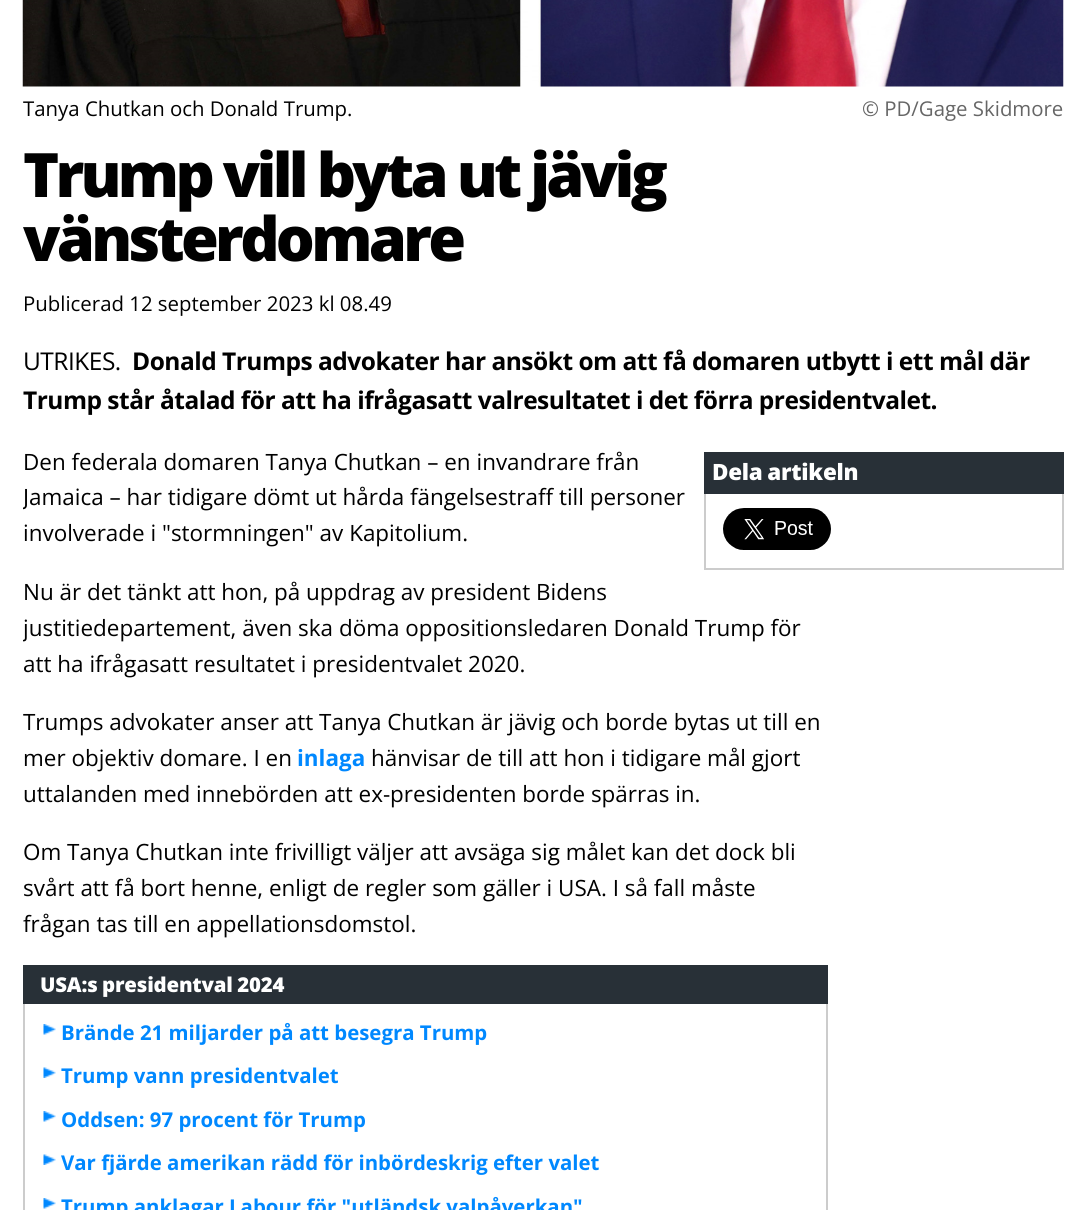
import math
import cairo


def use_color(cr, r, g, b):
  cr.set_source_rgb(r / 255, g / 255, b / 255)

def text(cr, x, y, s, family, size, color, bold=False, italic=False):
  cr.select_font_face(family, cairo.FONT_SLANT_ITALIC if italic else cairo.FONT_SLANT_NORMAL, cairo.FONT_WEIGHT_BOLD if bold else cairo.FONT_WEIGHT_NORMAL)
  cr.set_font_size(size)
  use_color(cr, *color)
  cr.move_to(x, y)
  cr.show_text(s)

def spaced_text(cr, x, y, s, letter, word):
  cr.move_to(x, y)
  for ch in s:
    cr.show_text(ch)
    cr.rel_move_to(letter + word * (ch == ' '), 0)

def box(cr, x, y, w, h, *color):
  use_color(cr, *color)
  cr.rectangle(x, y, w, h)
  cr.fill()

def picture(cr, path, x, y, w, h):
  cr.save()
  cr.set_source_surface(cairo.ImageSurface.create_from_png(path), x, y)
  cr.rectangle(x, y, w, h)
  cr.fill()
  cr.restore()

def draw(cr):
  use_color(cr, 255, 255, 255)
  cr.paint()
  picture(cr, "img_01.png", 22, 0, 1042, 87)
  cr.rectangle(705, 453, 358, 116)
  use_color(cr, 204, 204, 204)
  cr.stroke()
  box(cr, 704, 452, 360, 42, 40, 48, 55)
  picture(cr, "img_02.png", 723, 508, 108, 42)
  cr.rectangle(24, 966, 803, 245)
  use_color(cr, 204, 204, 204)
  cr.stroke()
  box(cr, 23, 965, 805, 39, 40, 48, 55)
  picture(cr, "img_03.png", 43, 1024, 13, 11)
  picture(cr, "img_04.png", 43, 1067, 13, 11)
  picture(cr, "img_03.png", 43, 1111, 13, 11)
  picture(cr, "img_04.png", 43, 1154, 13, 11)
  picture(cr, "img_03.png", 43, 1198, 13, 11)
  text(cr, 23, 116, "Tanya Chutkan och Donald Trump.", "Open Sans", 20.4, (0, 0, 0))
  text(cr, 862, 116, "© PD/Gage Skidmore", "Open Sans", 20.4, (102, 102, 102))
  cr.select_font_face("Open Sans ExtraBold")
  cr.set_font_size(61.25)
  use_color(cr, 0, 0, 0)
  spaced_text(cr, 23, 197, "Trump vill byta ut jävig", -3.7, -0.5)
  spaced_text(cr, 23, 261, "vänsterdomare", -3.7, 0)
  text(cr, 23, 311, "Publicerad 12 september 2023 kl 08.49", "Open Sans", 20.4, (0, 0, 0))
  cr.set_font_size(24.5)
  spaced_text(cr, 23, 370, "UTRIKES.", -0.5, 0)
  cr.select_font_face("Open Sans", cairo.FONT_SLANT_NORMAL, cairo.FONT_WEIGHT_BOLD)
  spaced_text(cr, 132, 370, "Donald Trumps advokater har ansökt om att få domaren utbytt i ett mål där", -0.5, 0)
  spaced_text(cr, 23, 409, "Trump står åtalad för att ha ifrågasatt valresultatet i det förra presidentvalet.", -0.5, 0)
  text(cr, 23, 470, "Den federala domaren Tanya Chutkan – en invandrare från", "Open Sans", 22.45, (0, 0, 0))
  cr.save()
  cr.rectangle(23, 0, 1041, 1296)
  cr.clip()
  text(cr, 23, 505, "Jamaica – har tidigare dömt ut hårda fängelsestraff till personer", "Open Sans", 22.45, (0, 0, 0))
  cr.restore()
  text(cr, 23, 541, "involverade i \"stormningen\" av Kapitolium.", "Open Sans", 22.45, (0, 0, 0))
  text(cr, 23, 600, "Nu är det tänkt att hon, på uppdrag av president Bidens", "Open Sans", 22.45, (0, 0, 0))
  cr.save()
  cr.rectangle(23, 0, 1041, 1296)
  cr.clip()
  text(cr, 23, 636, "justitiedepartement, även ska döma oppositionsledaren Donald Trump för", "Open Sans", 22.45, (0, 0, 0))
  cr.restore()
  text(cr, 23, 672, "att ha ifrågasatt resultatet i presidentvalet 2020.", "Open Sans", 22.45, (0, 0, 0))
  text(cr, 23, 730, "Trumps advokater anser att Tanya Chutkan är jävig och borde bytas ut till en", "Open Sans", 22.45, (0, 0, 0))
  text(cr, 23, 766, "mer objektiv domare. I en", "Open Sans", 22.45, (0, 0, 0))
  text(cr, 297, 766, "inlaga", "Open Sans", 22.45, (0, 136, 255), bold=True)
  text(cr, 371, 766, "hänvisar de till att hon i tidigare mål gjort", "Open Sans", 22.45, (0, 0, 0))
  text(cr, 23, 802, "uttalanden med innebörden att ex-presidenten borde spärras in.", "Open Sans", 22.45, (0, 0, 0))
  text(cr, 23, 860, "Om Tanya Chutkan inte frivilligt väljer att avsäga sig målet kan det dock bli", "Open Sans", 22.45, (0, 0, 0))
  text(cr, 23, 896, "svårt att få bort henne, enligt de regler som gäller i USA. I så fall måste", "Open Sans", 22.45, (0, 0, 0))
  text(cr, 23, 932, "frågan tas till en appellationsdomstol.", "Open Sans", 22.45, (0, 0, 0))
  cr.select_font_face("Open Sans ExtraBold")
  use_color(cr, 255, 255, 255)
  spaced_text(cr, 712, 480, "Dela artikeln", -0.25, -1)
  cr.set_font_size(20.4)
  spaced_text(cr, 40, 992, "USA:s presidentval 2024", -0.2, -0.5)
  text(cr, 61, 1040, "Brände 21 miljarder på att besegra Trump", "Open Sans", 20.4, (0, 136, 255), bold=True)
  text(cr, 61, 1083, "Trump vann presidentvalet", "Open Sans", 20.4, (0, 136, 255), bold=True)
  text(cr, 61, 1127, "Oddsen: 97 procent för Trump", "Open Sans", 20.4, (0, 136, 255), bold=True)
  text(cr, 61, 1170, "Var fjärde amerikan rädd för inbördeskrig efter valet", "Open Sans", 20.4, (0, 136, 255), bold=True)
  text(cr, 61, 1214, "Trump anklagar Labour för \"utländsk valpåverkan\"", "Open Sans", 20.4, (0, 136, 255), bold=True)


surface = cairo.ImageSurface(cairo.FORMAT_RGB24, 1085, 1210)
cr = cairo.Context(surface)
options = cairo.FontOptions()
options.set_hint_metrics(cairo.HINT_METRICS_OFF)
options.set_hint_style(cairo.HINT_STYLE_NONE)
cr.set_font_options(options)
cr.set_miter_limit(4)
draw(cr)
surface.write_to_png("out.png")
